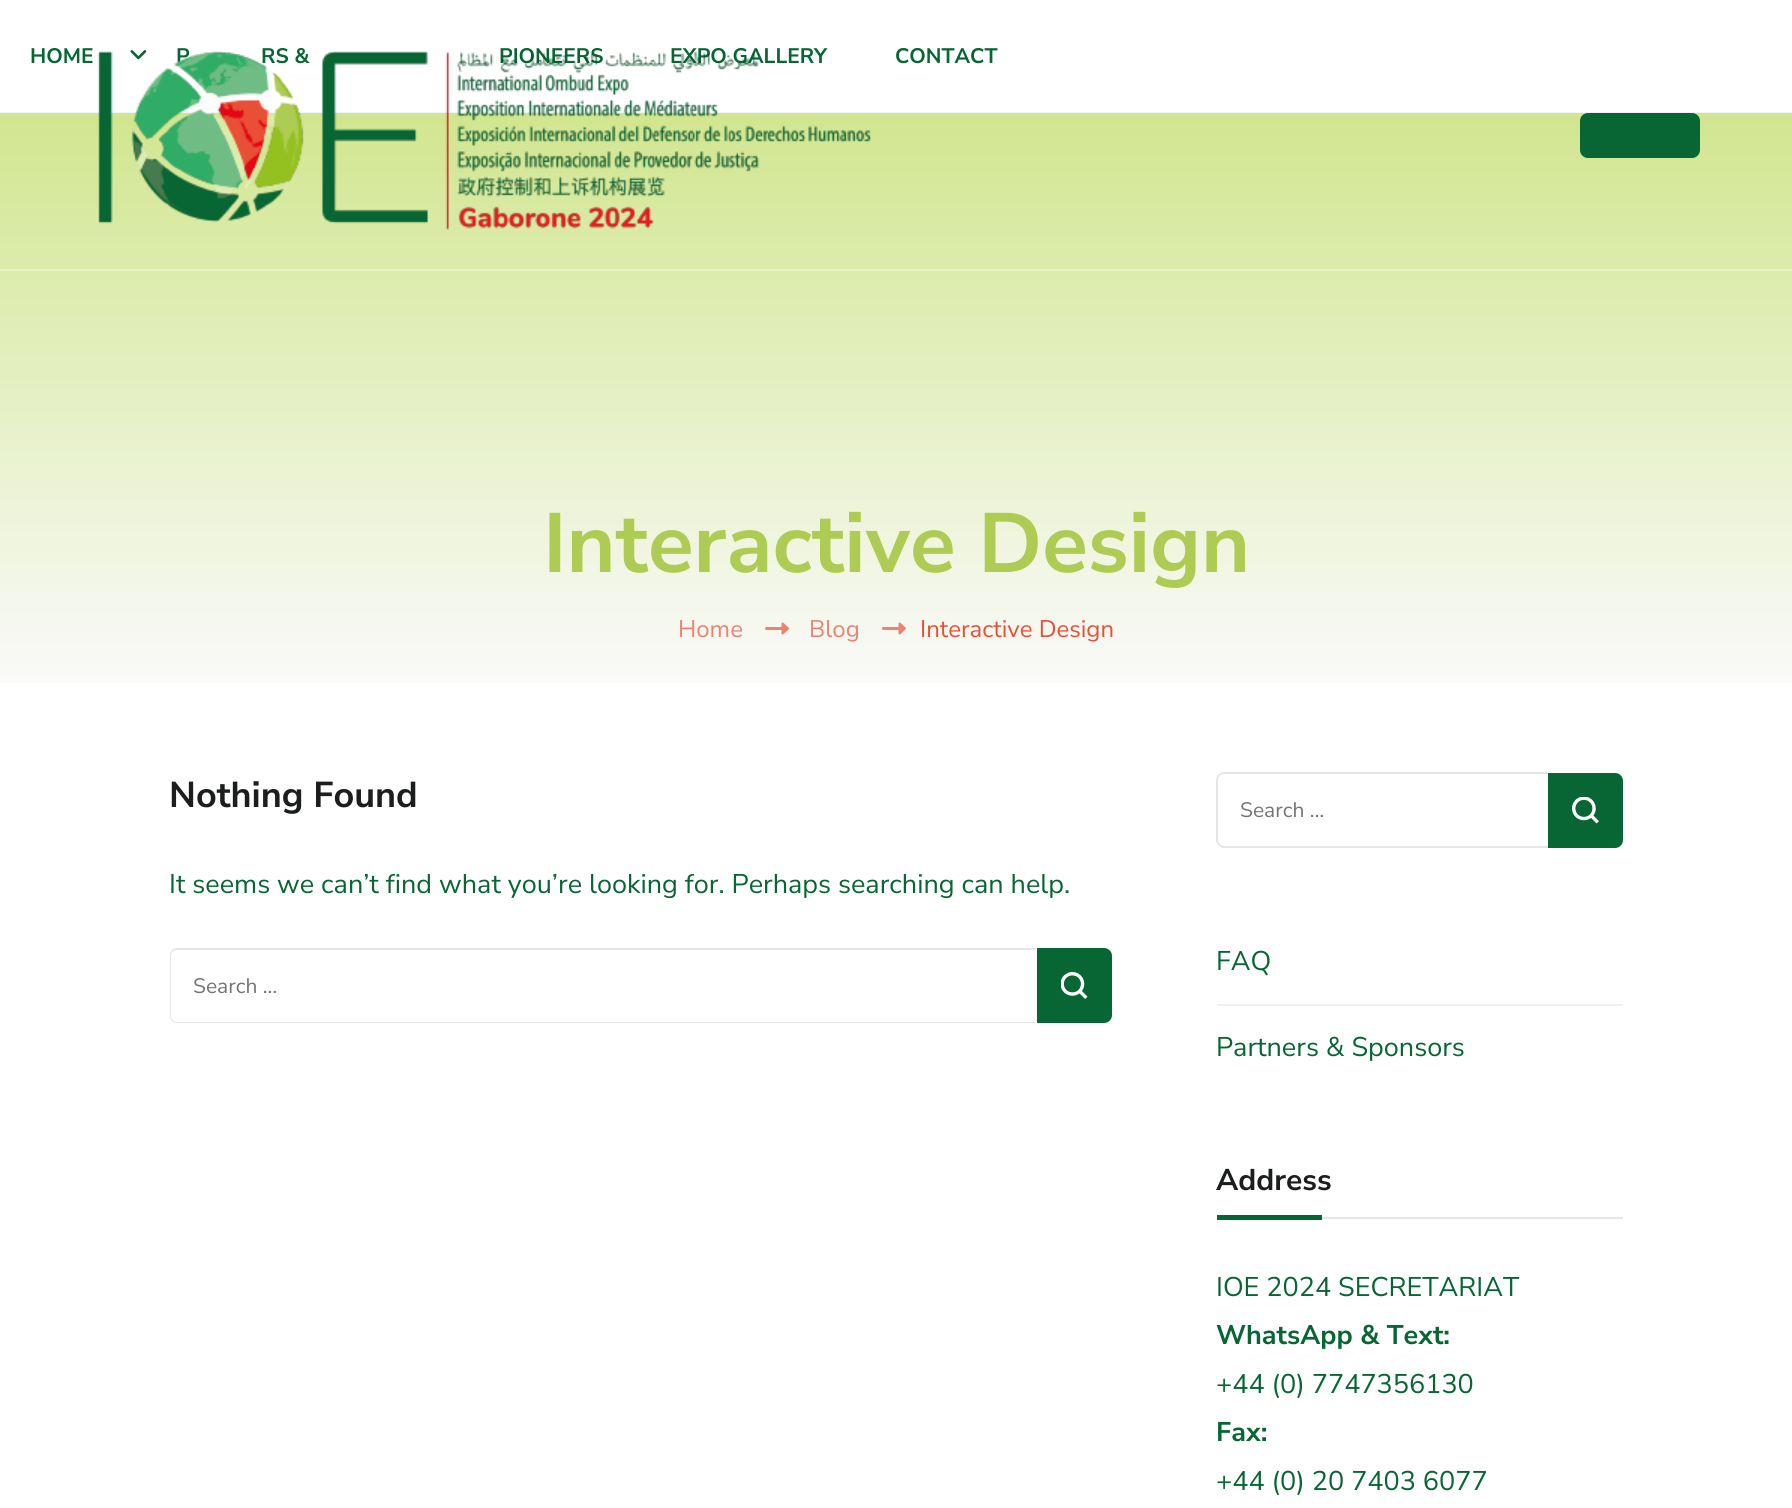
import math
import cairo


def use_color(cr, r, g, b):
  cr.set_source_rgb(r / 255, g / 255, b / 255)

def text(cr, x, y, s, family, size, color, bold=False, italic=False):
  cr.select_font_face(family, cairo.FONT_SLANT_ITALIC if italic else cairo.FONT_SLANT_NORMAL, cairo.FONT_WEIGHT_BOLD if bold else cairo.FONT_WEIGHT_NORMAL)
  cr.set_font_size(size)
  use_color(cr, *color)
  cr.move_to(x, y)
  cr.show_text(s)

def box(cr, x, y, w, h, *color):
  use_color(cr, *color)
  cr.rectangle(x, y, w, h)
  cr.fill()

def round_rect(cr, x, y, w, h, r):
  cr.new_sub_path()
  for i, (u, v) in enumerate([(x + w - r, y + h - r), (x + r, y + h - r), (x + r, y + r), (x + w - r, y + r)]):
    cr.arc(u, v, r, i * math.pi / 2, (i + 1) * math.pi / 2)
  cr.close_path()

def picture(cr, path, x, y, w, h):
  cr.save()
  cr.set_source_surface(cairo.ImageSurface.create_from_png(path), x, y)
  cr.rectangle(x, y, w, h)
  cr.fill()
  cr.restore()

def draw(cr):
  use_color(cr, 255, 255, 255)
  cr.paint()
  picture(cr, "img_01.png", 130, 50, 17, 10)
  gradient = cairo.LinearGradient(896, 112, 896, 683)
  gradient.add_color_stop_rgba(0, 0.82, 0.902, 0.561, 1)
  gradient.add_color_stop_rgba(1, 0.98, 0.98, 0.98, 1)
  cr.set_source(gradient)
  cr.rectangle(0, 113, 1792, 570)
  cr.fill()
  box(cr, 0, 269, 1792, 2, 231, 242, 198)
  use_color(cr, 7, 102, 51)
  round_rect(cr, 1580, 113, 120, 45, 8)
  cr.fill()
  box(cr, 0, 112, 1792, 1, 242, 242, 242)
  picture(cr, "img_03.png", 765, 622, 24, 13)
  picture(cr, "img_03.png", 882, 622, 24, 13)
  use_color(cr, 230, 230, 230)
  cr.set_fill_rule(cairo.FILL_RULE_EVEN_ODD)
  cr.new_path()
  cr.move_to(177, 948)
  cr.line_to(1036, 948)
  cr.line_to(1036, 1023)
  cr.line_to(177, 1023)
  cr.curve_to(173, 1023, 170, 1020, 170, 1016)
  cr.line_to(170, 956)
  cr.curve_to(170, 951, 173, 948, 177, 948)
  cr.close_path()
  cr.move_to(177, 950)
  cr.line_to(1036, 950)
  cr.line_to(1036, 1022)
  cr.line_to(177, 1022)
  cr.curve_to(174, 1022, 171, 1019, 171, 1016)
  cr.line_to(171, 956)
  cr.curve_to(171, 952, 174, 950, 177, 950)
  cr.close_path()
  cr.fill()
  use_color(cr, 7, 102, 51)
  cr.new_path()
  cr.move_to(1037, 948)
  cr.line_to(1104, 948)
  cr.curve_to(1108.5, 948, 1112, 951.5, 1112, 956)
  cr.line_to(1112, 1015)
  cr.curve_to(1112, 1019.5, 1108.5, 1023, 1104, 1023)
  cr.line_to(1037, 1023)
  cr.close_path()
  cr.fill()
  picture(cr, "img_04.png", 1061, 972, 27, 27)
  use_color(cr, 230, 230, 230)
  cr.new_path()
  cr.move_to(1224, 772)
  cr.line_to(1548, 772)
  cr.line_to(1548, 848)
  cr.line_to(1224, 848)
  cr.curve_to(1220, 848, 1216, 844, 1216, 840)
  cr.line_to(1216, 780)
  cr.curve_to(1216, 776, 1220, 772, 1224, 772)
  cr.close_path()
  cr.move_to(1224, 774)
  cr.line_to(1548, 774)
  cr.line_to(1548, 846)
  cr.line_to(1224, 846)
  cr.curve_to(1221, 846, 1218, 843, 1218, 840)
  cr.line_to(1218, 780)
  cr.curve_to(1218, 777, 1221, 774, 1224, 774)
  cr.close_path()
  cr.fill()
  use_color(cr, 7, 102, 51)
  cr.new_path()
  cr.move_to(1548, 773)
  cr.line_to(1615, 773)
  cr.curve_to(1619.5, 773, 1623, 776.5, 1623, 781)
  cr.line_to(1623, 840)
  cr.curve_to(1623, 844.5, 1619.5, 848, 1615, 848)
  cr.line_to(1548, 848)
  cr.close_path()
  cr.fill()
  picture(cr, "img_05.png", 1572, 797, 27, 27)
  box(cr, 1217, 1004, 406, 2, 240, 240, 240)
  box(cr, 1322, 1217, 301, 2, 230, 230, 230)
  box(cr, 1217, 1215, 105, 5, 7, 102, 51)
  text(cr, 30, 63, "HOME", "Nunito Sans", 21, (7, 102, 51), bold=True)
  text(cr, 176, 63, "P", "Nunito Sans", 21, (7, 102, 51), bold=True)
  text(cr, 261, 63, "RS &", "Nunito Sans", 21, (7, 102, 51), bold=True)
  text(cr, 499, 63, "PIONEERS", "Nunito Sans", 21, (7, 102, 51), bold=True)
  text(cr, 670, 63, "EXPO GALLERY", "Nunito Sans", 21, (7, 102, 51), bold=True)
  text(cr, 895, 63, "CONTACT", "Nunito Sans", 21, (7, 102, 51), bold=True)
  picture(cr, "img_02.png", 98, 51, 773, 179)
  text(cr, 543, 572, "Interactive Design", "Nunito Sans", 84, (174, 204, 83), bold=True)
  text(cr, 678, 637, "Home", "Nunito Sans", 24, (237, 130, 110))
  text(cr, 809, 637, "Blog", "Nunito Sans", 24, (237, 130, 110))
  text(cr, 920, 637, "Interactive Design", "Nunito Sans", 24, (233, 79, 54))
  text(cr, 169, 807, "Nothing Found", "Nunito Sans", 36, (28, 29, 29), bold=True)
  text(cr, 169, 893, "It seems we can’t find what you’re looking for. Perhaps searching can help.", "Nunito Sans", 27, (7, 102, 51))
  text(cr, 193, 993, "Search …", "Nunito Sans", 21, (117, 117, 117))
  text(cr, 1240, 817, "Search …", "Nunito Sans", 21, (117, 117, 117))
  text(cr, 1216, 970, "FAQ", "Nunito Sans", 27, (7, 102, 51))
  text(cr, 1216, 1056, "Partners & Sponsors", "Nunito Sans", 27, (7, 102, 51))
  text(cr, 1216, 1190, "Address", "Nunito Sans", 30, (28, 29, 29), bold=True)
  text(cr, 1216, 1296, "IOE 2024 SECRETARIAT", "Nunito Sans", 27, (7, 102, 51))
  text(cr, 1216, 1344, "WhatsApp & Text:", "Nunito Sans", 27, (7, 102, 51), bold=True)
  text(cr, 1216, 1393, "+44 (0) 7747356130", "Nunito Sans", 27, (7, 102, 51))
  text(cr, 1216, 1441, "Fax:", "Nunito Sans", 27, (7, 102, 51), bold=True)
  text(cr, 1216, 1490, "+44 (0) 20 7403 6077", "Nunito Sans", 27, (7, 102, 51))


surface = cairo.ImageSurface(cairo.FORMAT_RGB24, 1792, 1508)
cr = cairo.Context(surface)
options = cairo.FontOptions()
options.set_hint_metrics(cairo.HINT_METRICS_OFF)
options.set_hint_style(cairo.HINT_STYLE_NONE)
cr.set_font_options(options)
cr.set_miter_limit(4)
draw(cr)
surface.write_to_png("out.png")
